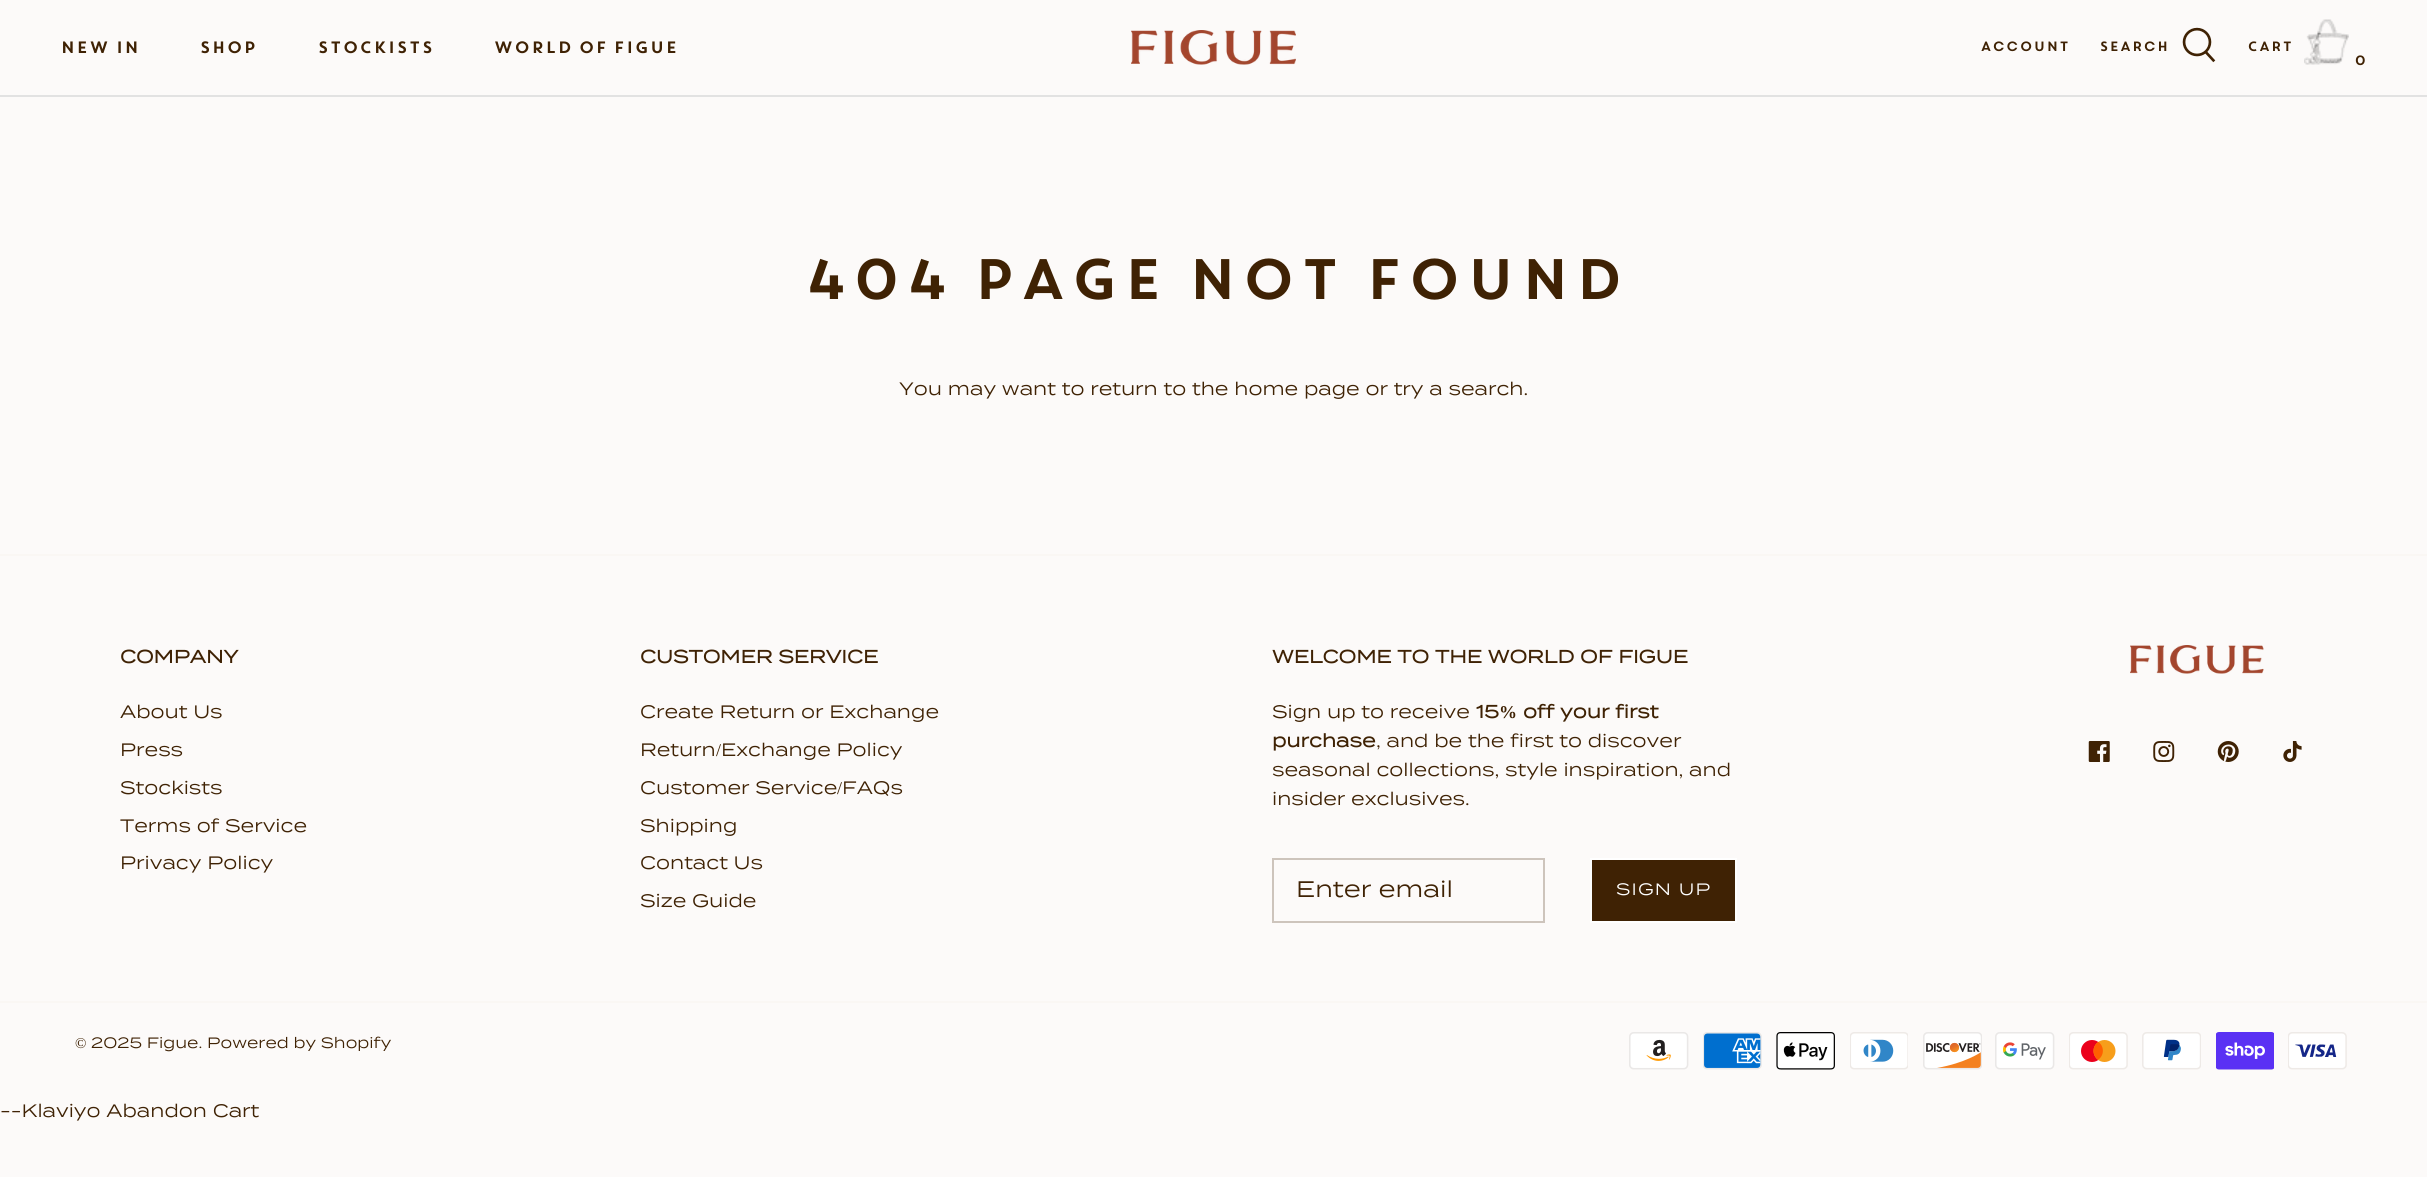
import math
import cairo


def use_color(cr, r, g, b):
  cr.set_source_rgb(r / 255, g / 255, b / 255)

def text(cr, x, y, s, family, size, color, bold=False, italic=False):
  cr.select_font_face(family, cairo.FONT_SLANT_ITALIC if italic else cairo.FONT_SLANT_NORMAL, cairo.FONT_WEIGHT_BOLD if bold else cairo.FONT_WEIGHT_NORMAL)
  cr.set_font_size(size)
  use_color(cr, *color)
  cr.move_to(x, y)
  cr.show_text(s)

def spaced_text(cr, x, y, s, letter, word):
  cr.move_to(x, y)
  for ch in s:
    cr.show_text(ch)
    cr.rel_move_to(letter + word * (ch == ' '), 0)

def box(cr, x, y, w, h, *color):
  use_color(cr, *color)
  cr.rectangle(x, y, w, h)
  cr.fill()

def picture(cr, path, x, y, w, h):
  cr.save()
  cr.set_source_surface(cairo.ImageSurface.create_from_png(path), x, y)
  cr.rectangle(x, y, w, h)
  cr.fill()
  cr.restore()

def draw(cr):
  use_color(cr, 252, 250, 249)
  cr.paint()
  box(cr, 0, 95, 2427, 2, 226, 226, 226)
  picture(cr, "img_01.png", 1131, 30, 165, 35)
  picture(cr, "img_02.png", 2182, 27, 34, 36)
  picture(cr, "img_03.png", 2304, 19, 45, 46)
  box(cr, 0, 554, 2427, 2, 250, 247, 244)
  cr.rectangle(1273, 859, 271, 63)
  use_color(cr, 205, 196, 188)
  cr.stroke()
  use_color(cr, 63, 34, 4)
  cr.rectangle(1591, 859, 145, 63)
  cr.fill_preserve()
  use_color(cr, 255, 255, 255)
  cr.stroke()
  picture(cr, "img_04.png", 2130, 645, 134, 29)
  picture(cr, "img_05.png", 2088, 741, 22, 21)
  picture(cr, "img_06.png", 2153, 741, 22, 21)
  picture(cr, "img_07.png", 2217, 741, 22, 21)
  picture(cr, "img_08.png", 2283, 741, 19, 21)
  box(cr, 0, 1001, 2427, 2, 250, 247, 244)
  picture(cr, "img_09.png", 1629, 1032, 60, 38)
  picture(cr, "img_10.png", 1703, 1032, 59, 38)
  picture(cr, "img_11.png", 1776, 1032, 59, 38)
  picture(cr, "img_12.png", 1850, 1032, 58, 38)
  picture(cr, "img_13.png", 1923, 1032, 59, 38)
  picture(cr, "img_14.png", 1995, 1032, 60, 38)
  picture(cr, "img_15.png", 2069, 1032, 59, 38)
  picture(cr, "img_16.png", 2142, 1032, 59, 38)
  picture(cr, "img_17.png", 2216, 1032, 58, 38)
  picture(cr, "img_18.png", 2288, 1032, 59, 38)
  text(cr, 60, 53, "NEW IN", "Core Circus", 16.5, (63, 34, 4))
  text(cr, 199, 53, "SHOP", "Core Circus", 16.5, (63, 34, 4))
  text(cr, 317, 53, "STOCKISTS", "Core Circus", 16.5, (63, 34, 4))
  text(cr, 493, 53, "WORLD OF FIGUE", "Core Circus", 16.5, (63, 34, 4))
  text(cr, 1980, 51, "Account", "Core Circus", 13.5, (63, 34, 4))
  text(cr, 2099, 51, "Search", "Core Circus", 13.5, (63, 34, 4))
  text(cr, 2247, 51, "Cart", "Core Circus", 13.5, (63, 34, 4))
  text(cr, 2354, 65, "0", "Core Circus", 13.5, (63, 34, 4))
  text(cr, 802, 299, "404 PAGE NOT FOUND", "Core Circus", 57, (63, 34, 4))
  text(cr, 899, 395, "You may want to return to the home page or try a search.", "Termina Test", 18, (63, 34, 4))
  text(cr, 120, 663, "COMPANY", "Termina Test", 18, (63, 34, 4), bold=True)
  text(cr, 120, 718, "About Us", "Termina Test", 18, (63, 34, 4))
  text(cr, 120, 756, "Press", "Termina Test", 18, (63, 34, 4))
  text(cr, 120, 794, "Stockists", "Termina Test", 18, (63, 34, 4))
  text(cr, 120, 832, "Terms of Service", "Termina Test", 18, (63, 34, 4))
  text(cr, 120, 869, "Privacy Policy", "Termina Test", 18, (63, 34, 4))
  text(cr, 640, 663, "CUSTOMER SERVICE", "Termina Test", 18, (63, 34, 4), bold=True)
  text(cr, 640, 718, "Create Return or Exchange", "Termina Test", 18, (63, 34, 4))
  text(cr, 640, 756, "Return", "Termina Test", 18, (63, 34, 4))
  text(cr, 716, 756, "/", "Liberation Serif", 18, (63, 34, 4))
  text(cr, 721, 756, "Exchange Policy", "Termina Test", 18, (63, 34, 4))
  text(cr, 640, 794, "Customer Service", "Termina Test", 18, (63, 34, 4))
  text(cr, 837, 794, "/", "Liberation Serif", 18, (63, 34, 4))
  text(cr, 842, 794, "FAQs", "Termina Test", 18, (63, 34, 4))
  text(cr, 640, 832, "Shipping", "Termina Test", 18, (63, 34, 4))
  text(cr, 640, 869, "Contact Us", "Termina Test", 18, (63, 34, 4))
  text(cr, 640, 907, "Size Guide", "Termina Test", 18, (63, 34, 4))
  text(cr, 1272, 663, "WELCOME TO THE WORLD OF FIGUE", "Termina Test", 18, (63, 34, 4), bold=True)
  text(cr, 1272, 718, "Sign up to receive", "Termina Test", 18, (63, 34, 4))
  text(cr, 1476, 718, "15", "Termina Test", 18, (63, 34, 4), bold=True)
  text(cr, 1499, 718, "%", "Liberation Serif", 18, (63, 34, 4), bold=True)
  text(cr, 1523, 718, "off your first", "Termina Test", 18, (63, 34, 4), bold=True)
  text(cr, 1272, 747, "purchase", "Termina Test", 18, (63, 34, 4), bold=True)
  text(cr, 1376, 747, ", and be the first to discover", "Termina Test", 18, (63, 34, 4))
  text(cr, 1272, 776, "seasonal collections, style inspiration, and", "Termina Test", 18, (63, 34, 4))
  text(cr, 1272, 805, "insider exclusives.", "Termina Test", 18, (63, 34, 4))
  text(cr, 1296, 897, "Enter email", "Termina Test", 22.5, (63, 34, 4))
  cr.set_font_size(16.5)
  use_color(cr, 255, 255, 255)
  spaced_text(cr, 1616, 895, "SIGN UP", 1.25, 0)
  text(cr, 75, 1048, "©", "Liberation Serif", 15, (63, 34, 4))
  text(cr, 91, 1048, "2025 Figue. Powered by Shopify", "Termina Test", 15, (63, 34, 4))
  text(cr, 0, 1117, "--Klaviyo Abandon Cart", "Termina Test", 18, (63, 34, 4))


surface = cairo.ImageSurface(cairo.FORMAT_RGB24, 2427, 1177)
cr = cairo.Context(surface)
options = cairo.FontOptions()
options.set_hint_metrics(cairo.HINT_METRICS_OFF)
options.set_hint_style(cairo.HINT_STYLE_NONE)
cr.set_font_options(options)
cr.set_miter_limit(4)
draw(cr)
surface.write_to_png("out.png")
